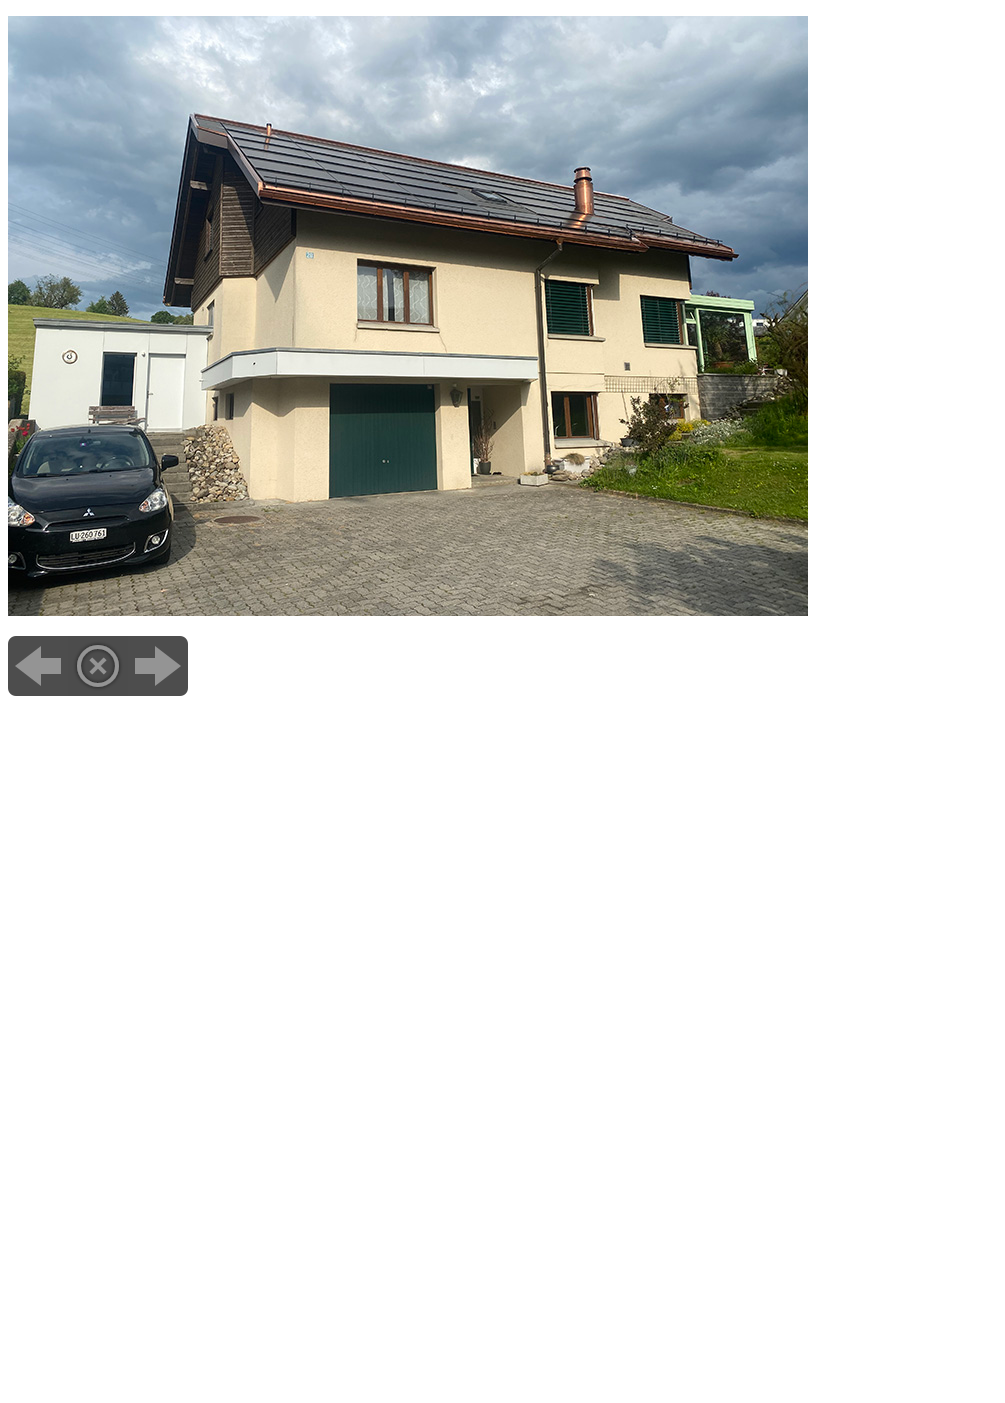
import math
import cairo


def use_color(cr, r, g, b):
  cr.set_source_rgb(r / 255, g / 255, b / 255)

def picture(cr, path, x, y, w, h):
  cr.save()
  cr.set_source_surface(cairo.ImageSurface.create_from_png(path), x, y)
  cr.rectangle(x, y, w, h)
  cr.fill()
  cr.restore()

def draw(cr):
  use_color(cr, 255, 255, 255)
  cr.paint()
  picture(cr, "img_01.png", 8, 16, 800, 600)
  use_color(cr, 77, 77, 77)
  cr.new_path()
  cr.move_to(16, 636)
  cr.line_to(68, 636)
  cr.line_to(68, 696)
  cr.line_to(16, 696)
  cr.curve_to(11.5, 696, 8, 692.5, 8, 688)
  cr.line_to(8, 644)
  cr.curve_to(8, 639.5, 11.5, 636, 16, 636)
  cr.close_path()
  cr.fill()
  picture(cr, "img_02.png", 68, 636, 60, 60)
  cr.new_path()
  cr.move_to(128, 636)
  cr.line_to(180, 636)
  cr.curve_to(184.5, 636, 188, 639.5, 188, 644)
  cr.line_to(188, 688)
  cr.curve_to(188, 692.5, 184.5, 696, 180, 696)
  cr.line_to(128, 696)
  cr.close_path()
  cr.fill()
  use_color(cr, 148, 148, 148)
  cr.set_fill_rule(cairo.FILL_RULE_EVEN_ODD)
  cr.new_path()
  cr.move_to(15, 666)
  cr.line_to(41, 646)
  cr.line_to(41, 658)
  cr.line_to(61, 658)
  cr.line_to(61, 674)
  cr.line_to(41, 674)
  cr.line_to(41, 686)
  cr.close_path()
  cr.fill()
  cr.new_path()
  cr.move_to(181, 666)
  cr.line_to(155, 646)
  cr.line_to(155, 658)
  cr.line_to(135, 658)
  cr.line_to(135, 674)
  cr.line_to(155, 674)
  cr.line_to(155, 686)
  cr.close_path()
  cr.fill()


surface = cairo.ImageSurface(cairo.FORMAT_RGB24, 1005, 1403)
cr = cairo.Context(surface)
options = cairo.FontOptions()
options.set_hint_metrics(cairo.HINT_METRICS_OFF)
options.set_hint_style(cairo.HINT_STYLE_NONE)
cr.set_font_options(options)
cr.set_miter_limit(4)
draw(cr)
surface.write_to_png("out.png")
